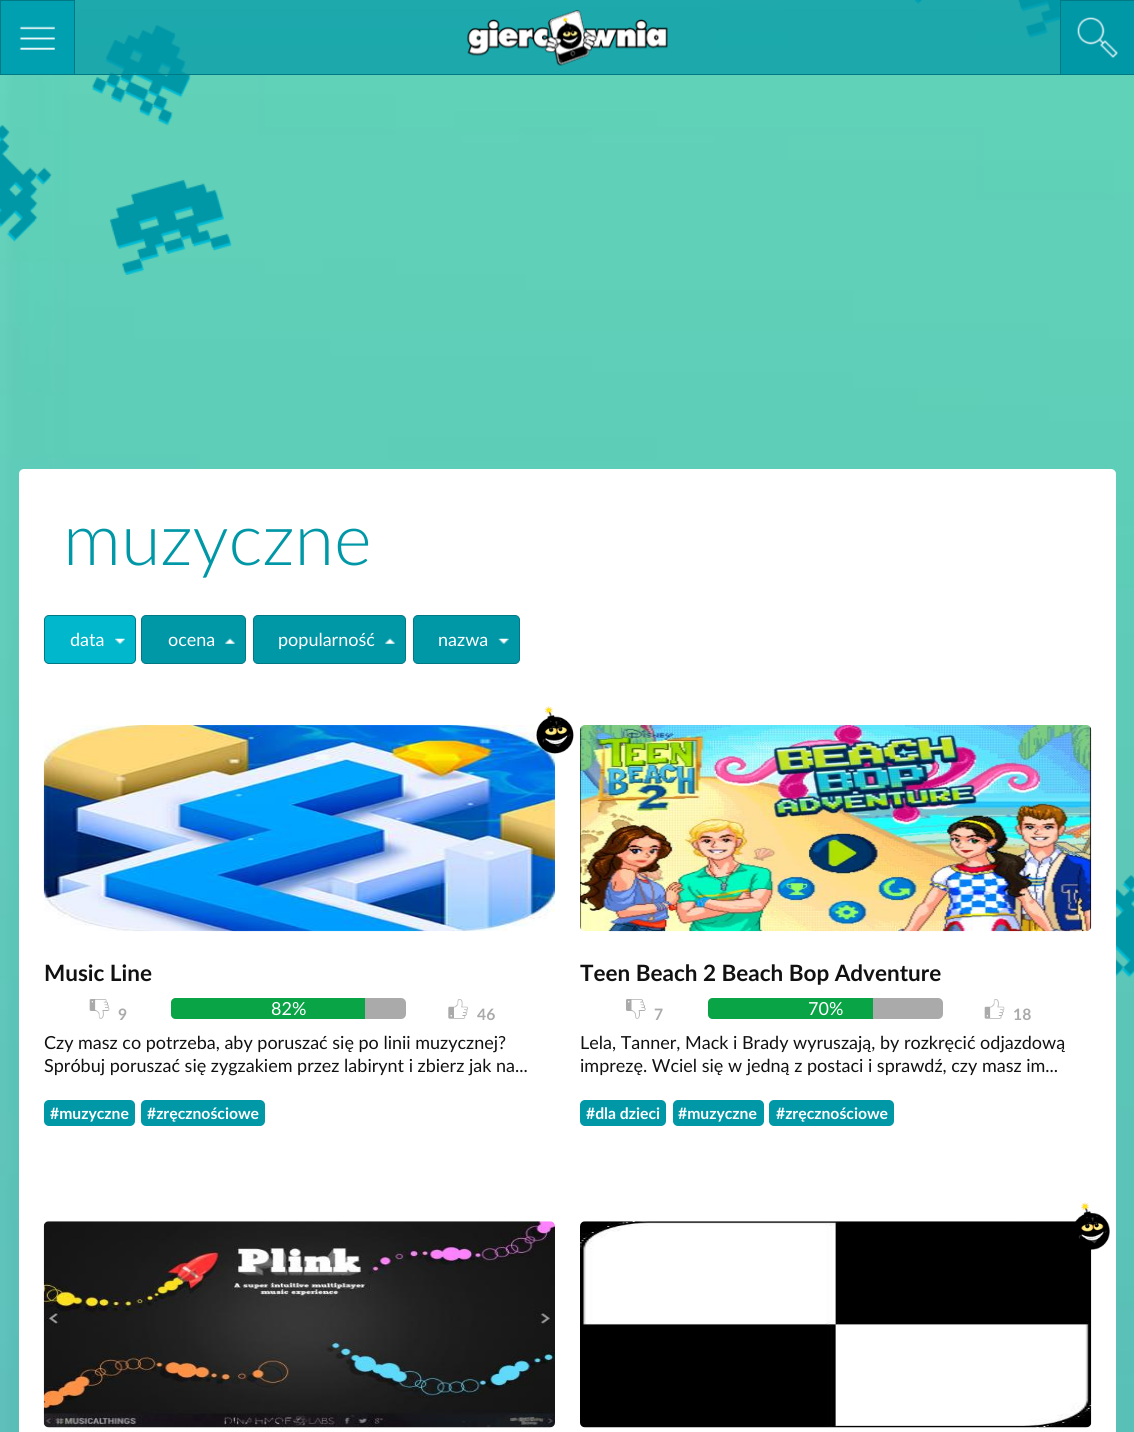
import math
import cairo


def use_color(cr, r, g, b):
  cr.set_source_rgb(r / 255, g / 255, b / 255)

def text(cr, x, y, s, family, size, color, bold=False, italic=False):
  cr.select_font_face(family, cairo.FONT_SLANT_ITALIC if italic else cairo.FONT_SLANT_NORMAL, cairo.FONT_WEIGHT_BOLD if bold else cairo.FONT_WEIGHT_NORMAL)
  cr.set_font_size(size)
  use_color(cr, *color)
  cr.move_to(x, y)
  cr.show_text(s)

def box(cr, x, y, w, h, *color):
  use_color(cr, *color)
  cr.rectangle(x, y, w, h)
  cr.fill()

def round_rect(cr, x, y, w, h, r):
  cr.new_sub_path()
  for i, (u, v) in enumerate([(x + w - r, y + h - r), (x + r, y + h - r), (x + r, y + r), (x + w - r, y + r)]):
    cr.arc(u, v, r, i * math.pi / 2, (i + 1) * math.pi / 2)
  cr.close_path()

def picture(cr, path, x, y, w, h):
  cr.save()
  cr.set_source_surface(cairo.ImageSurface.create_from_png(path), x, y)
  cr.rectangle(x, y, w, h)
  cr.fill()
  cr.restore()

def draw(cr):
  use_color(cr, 255, 255, 255)
  cr.paint()
  picture(cr, "img_01.png", 0, 0, 1134, 1432)
  picture(cr, "img_02.png", 913, 0, 147, 38)
  picture(cr, "img_03.png", 0, 25, 232, 250)
  picture(cr, "img_04.png", 1116, 875, 18, 103)
  cr.set_source_rgba(0, 0.592, 0.655, 0.7)
  cr.rectangle(75, 0, 985, 74)
  cr.fill()
  box(cr, 75, 74, 985, 1, 0, 121, 133)
  box(cr, 1, 1, 73, 73, 0, 160, 177)
  picture(cr, "img_05.png", 19, 26, 36, 24)
  cr.rectangle(0.5, 0.5, 74, 74)
  use_color(cr, 0, 121, 133)
  cr.set_line_width(1)
  cr.stroke()
  picture(cr, "img_06.png", 467, 10, 201, 56)
  box(cr, 1061, 1, 73, 73, 0, 151, 167)
  picture(cr, "img_07.png", 1077, 17, 41, 41)
  cr.rectangle(1060.5, 0.5, 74, 74)
  use_color(cr, 0, 121, 133)
  cr.stroke()
  use_color(cr, 255, 255, 255)
  round_rect(cr, 19, 469, 1097, 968, 5)
  cr.fill()
  use_color(cr, 0, 183, 203)
  round_rect(cr, 44.5, 615.5, 91, 48, 4.5)
  cr.fill_preserve()
  use_color(cr, 0, 121, 133)
  cr.stroke()
  picture(cr, "img_08.png", 115, 638, 10, 6)
  use_color(cr, 0, 151, 167)
  round_rect(cr, 141.5, 615.5, 104, 48, 4.5)
  cr.fill_preserve()
  use_color(cr, 0, 121, 133)
  cr.stroke()
  picture(cr, "img_09.png", 225, 638, 10, 6)
  use_color(cr, 0, 151, 167)
  round_rect(cr, 253.5, 615.5, 152, 48, 4.5)
  cr.fill_preserve()
  use_color(cr, 0, 121, 133)
  cr.stroke()
  picture(cr, "img_09.png", 385, 638, 10, 6)
  use_color(cr, 0, 151, 167)
  round_rect(cr, 413.5, 615.5, 106, 48, 4.5)
  cr.fill_preserve()
  use_color(cr, 0, 121, 133)
  cr.stroke()
  picture(cr, "img_10.png", 498, 638, 11, 6)
  picture(cr, "img_12.png", 43, 725, 512, 207)
  picture(cr, "img_11.png", 536, 706, 38, 48)
  picture(cr, "img_13.png", 89, 999, 21, 20)
  use_color(cr, 170, 170, 170)
  round_rect(cr, 171, 998, 235, 21, 5)
  cr.fill()
  use_color(cr, 8, 164, 70)
  cr.new_path()
  cr.move_to(176, 998)
  cr.line_to(365, 998)
  cr.line_to(365, 1019)
  cr.line_to(176, 1019)
  cr.curve_to(173, 1019, 171, 1017, 171, 1014)
  cr.line_to(171, 1003)
  cr.curve_to(171, 1000, 173, 998, 176, 998)
  cr.close_path()
  cr.fill()
  picture(cr, "img_14.png", 448, 999, 20, 20)
  use_color(cr, 0, 151, 167)
  round_rect(cr, 44, 1100, 91, 26, 5)
  cr.fill()
  round_rect(cr, 141, 1100, 124, 26, 5)
  cr.fill()
  picture(cr, "img_15.png", 580, 725, 512, 207)
  picture(cr, "img_16.png", 626, 999, 20, 20)
  use_color(cr, 170, 170, 170)
  round_rect(cr, 708, 998, 235, 21, 5)
  cr.fill()
  use_color(cr, 8, 164, 70)
  cr.new_path()
  cr.move_to(713, 998)
  cr.line_to(873, 998)
  cr.line_to(873, 1019)
  cr.line_to(713, 1019)
  cr.curve_to(710, 1019, 708, 1017, 708, 1014)
  cr.line_to(708, 1003)
  cr.curve_to(708, 1000, 710, 998, 713, 998)
  cr.close_path()
  cr.fill()
  picture(cr, "img_17.png", 984, 999, 21, 20)
  use_color(cr, 0, 151, 167)
  round_rect(cr, 580, 1100, 86, 26, 5)
  cr.fill()
  round_rect(cr, 673, 1100, 91, 26, 5)
  cr.fill()
  round_rect(cr, 769, 1100, 125, 26, 5)
  cr.fill()
  picture(cr, "img_18.png", 43, 1221, 512, 207)
  picture(cr, "img_19.png", 580, 1221, 512, 207)
  picture(cr, "img_20.png", 1075, 1202, 35, 48)
  text(cr, 63, 565, "muzyczne", "Lato Light", 72, (0, 151, 167))
  text(cr, 70, 646, "data", "Lato", 18, (255, 255, 255))
  text(cr, 168, 646, "ocena", "Lato", 18, (255, 255, 255))
  text(cr, 278, 646, "popularność", "Lato", 18, (255, 255, 255))
  text(cr, 438, 646, "nazwa", "Lato", 18, (255, 255, 255))
  text(cr, 44, 981, "Music Line", "Lato", 22.5, (17, 17, 17), bold=True)
  text(cr, 118, 1020, "9", "Lato", 15.75, (170, 170, 170), bold=True)
  text(cr, 271, 1015, "82%", "Lato", 18, (255, 255, 255))
  text(cr, 477, 1020, "46", "Lato", 15.75, (170, 170, 170), bold=True)
  text(cr, 44, 1049, "Czy masz co potrzeba, aby poruszać się po linii muzycznej?", "Lato", 18, (17, 17, 17))
  text(cr, 44, 1072, "Spróbuj poruszać się zygzakiem przez labirynt i zbierz jak na...", "Lato", 18, (17, 17, 17))
  text(cr, 50, 1119, "#muzyczne", "Lato", 15.75, (255, 255, 255), bold=True)
  text(cr, 147, 1119, "#zręcznościowe", "Lato", 15.75, (255, 255, 255), bold=True)
  text(cr, 580, 981, "Teen Beach 2 Beach Bop Adventure", "Lato", 22.5, (17, 17, 17), bold=True)
  text(cr, 654, 1020, "7", "Lato", 15.75, (170, 170, 170), bold=True)
  text(cr, 808, 1015, "70%", "Lato", 18, (255, 255, 255))
  text(cr, 1013, 1020, "18", "Lato", 15.75, (170, 170, 170), bold=True)
  text(cr, 580, 1049, "Lela, Tanner, Mack i Brady wyruszają, by rozkręcić odjazdową", "Lato", 18, (17, 17, 17))
  text(cr, 580, 1072, "imprezę. Wciel się w jedną z postaci i sprawdź, czy masz im...", "Lato", 18, (17, 17, 17))
  text(cr, 586, 1119, "#dla dzieci", "Lato", 15.75, (255, 255, 255), bold=True)
  text(cr, 678, 1119, "#muzyczne", "Lato", 15.75, (255, 255, 255), bold=True)
  text(cr, 776, 1119, "#zręcznościowe", "Lato", 15.75, (255, 255, 255), bold=True)


surface = cairo.ImageSurface(cairo.FORMAT_RGB24, 1134, 1432)
cr = cairo.Context(surface)
options = cairo.FontOptions()
options.set_hint_metrics(cairo.HINT_METRICS_OFF)
options.set_hint_style(cairo.HINT_STYLE_NONE)
cr.set_font_options(options)
cr.set_miter_limit(4)
draw(cr)
surface.write_to_png("out.png")
